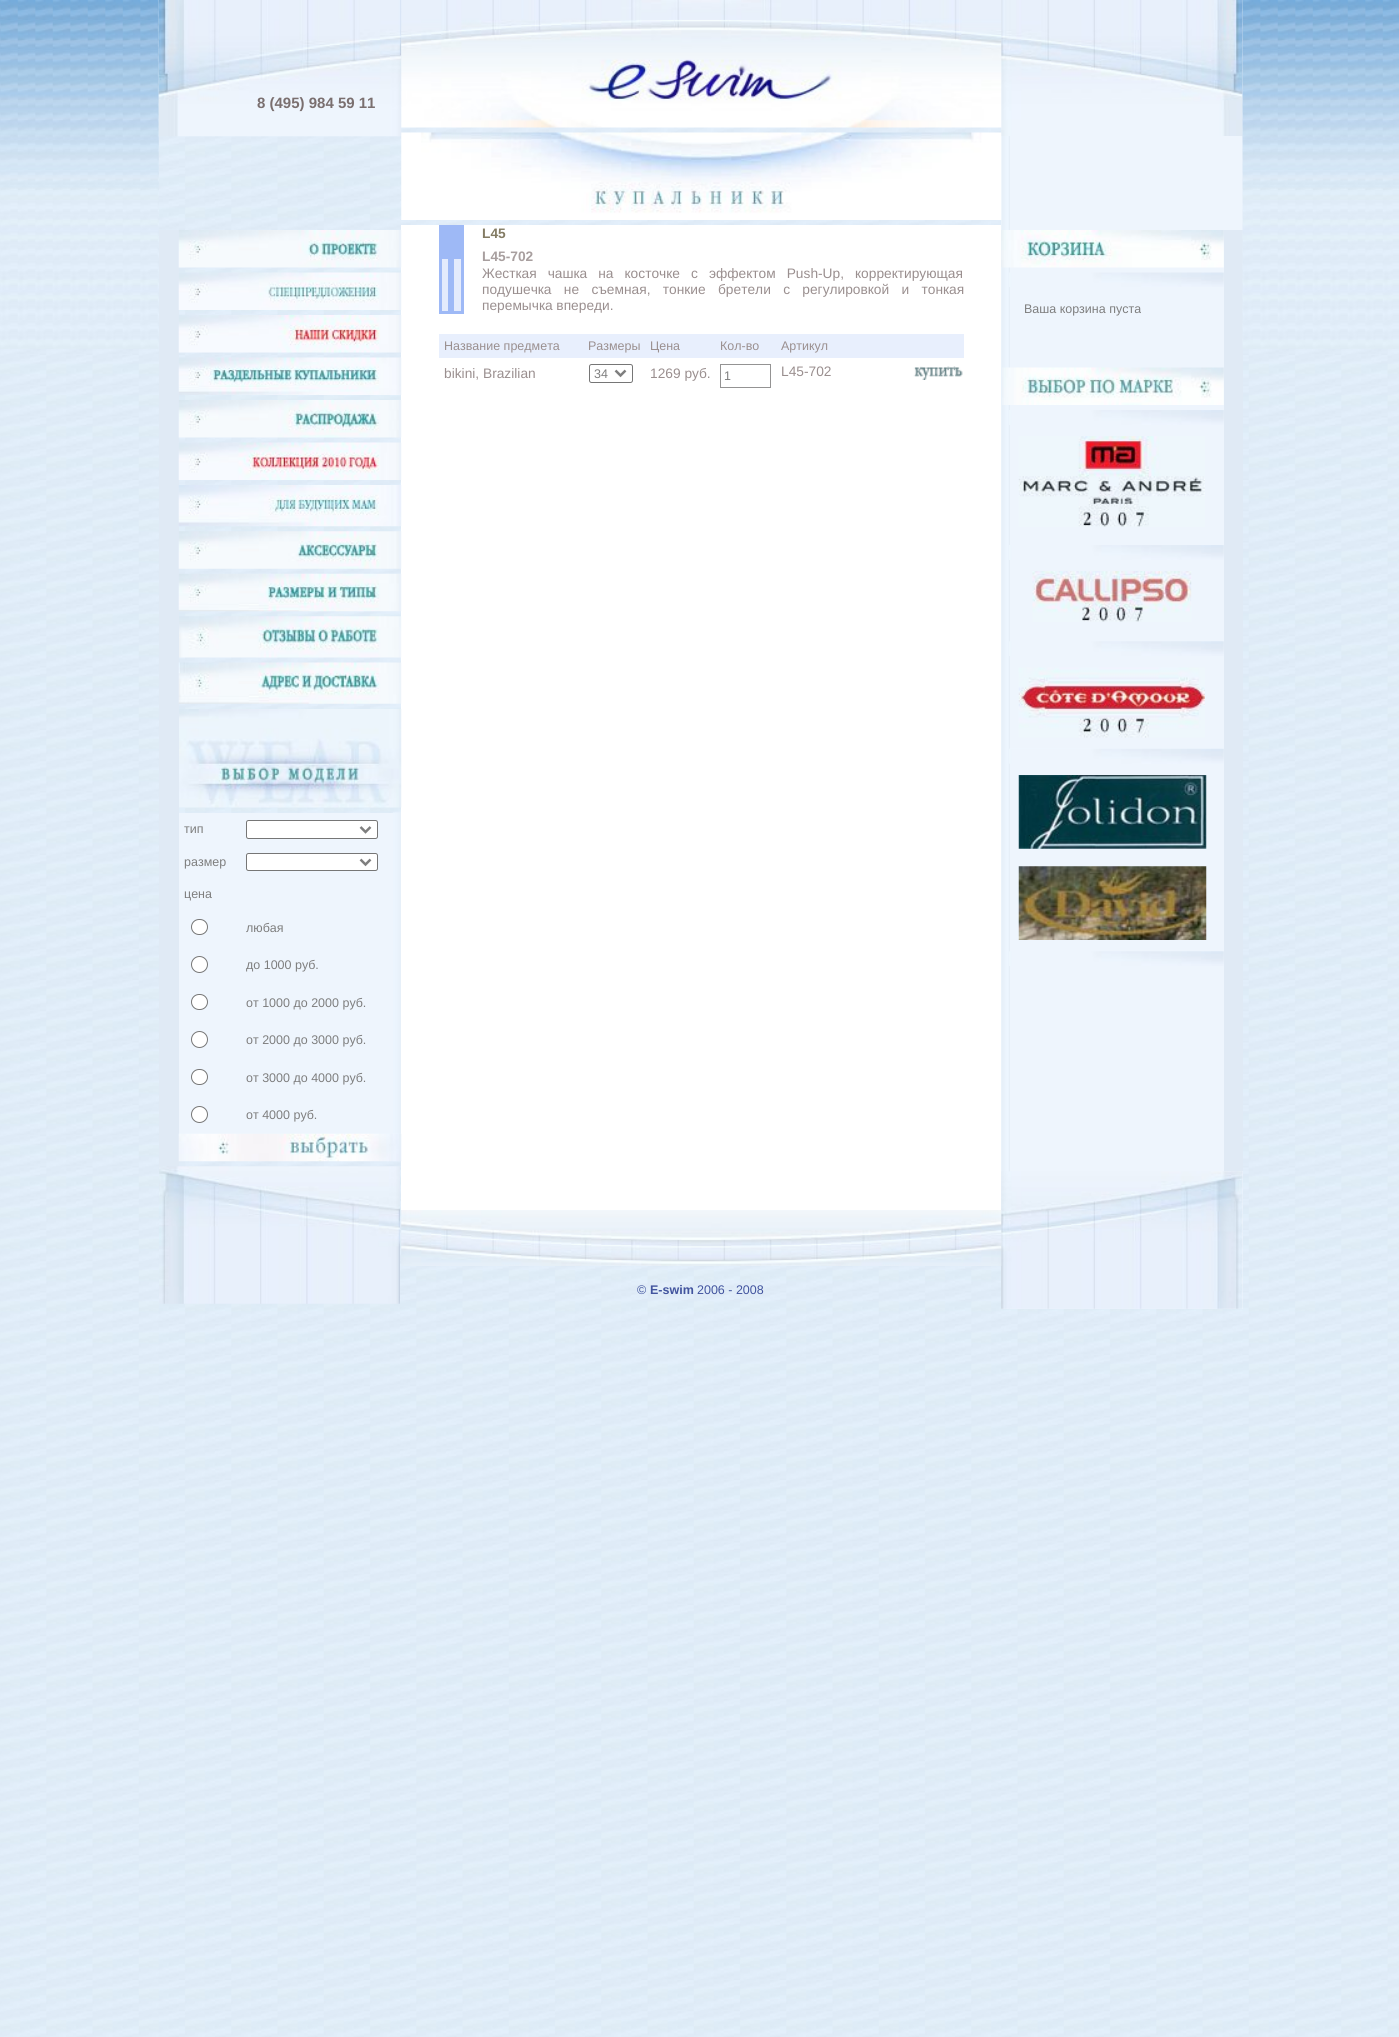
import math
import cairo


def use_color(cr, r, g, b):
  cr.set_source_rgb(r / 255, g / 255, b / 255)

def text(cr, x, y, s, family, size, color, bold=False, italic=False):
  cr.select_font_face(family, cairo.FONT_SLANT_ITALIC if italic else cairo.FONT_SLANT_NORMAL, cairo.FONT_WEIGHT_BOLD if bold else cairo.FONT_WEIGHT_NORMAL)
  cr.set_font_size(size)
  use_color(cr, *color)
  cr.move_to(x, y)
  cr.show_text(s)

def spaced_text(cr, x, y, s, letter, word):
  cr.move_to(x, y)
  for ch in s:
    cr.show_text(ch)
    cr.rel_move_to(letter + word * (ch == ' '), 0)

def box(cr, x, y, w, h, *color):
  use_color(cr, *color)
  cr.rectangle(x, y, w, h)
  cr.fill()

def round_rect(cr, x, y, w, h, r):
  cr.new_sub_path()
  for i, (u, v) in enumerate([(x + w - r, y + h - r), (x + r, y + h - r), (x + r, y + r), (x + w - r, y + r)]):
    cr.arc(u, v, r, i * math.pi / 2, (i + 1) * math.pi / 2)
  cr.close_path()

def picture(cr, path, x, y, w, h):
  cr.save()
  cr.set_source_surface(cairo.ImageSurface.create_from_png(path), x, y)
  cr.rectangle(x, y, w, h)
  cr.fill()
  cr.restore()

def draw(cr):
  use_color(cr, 255, 255, 255)
  cr.paint()
  picture(cr, "img_01.png", 0, 0, 1399, 2037)
  picture(cr, "img_02.png", 0, 0, 159, 349)
  picture(cr, "img_03.png", 158, 0, 244, 137)
  box(cr, 159, 230, 20, 936, 224, 234, 245)
  box(cr, 401, 225, 600, 985, 255, 255, 255)
  picture(cr, "img_04.png", 178, 230, 224, 38)
  picture(cr, "img_05.png", 178, 272, 224, 38)
  picture(cr, "img_06.png", 178, 315, 224, 38)
  picture(cr, "img_07.png", 178, 357, 224, 38)
  picture(cr, "img_08.png", 178, 400, 224, 38)
  picture(cr, "img_09.png", 178, 442, 224, 38)
  picture(cr, "img_10.png", 178, 485, 224, 42)
  picture(cr, "img_11.png", 178, 531, 224, 38)
  picture(cr, "img_12.png", 178, 573, 224, 39)
  picture(cr, "img_13.png", 179, 616, 223, 42)
  picture(cr, "img_14.png", 178, 662, 224, 42)
  picture(cr, "img_15.png", 179, 709, 223, 99)
  box(cr, 179, 813, 222, 321, 238, 245, 253)
  picture(cr, "img_16.png", 393, 812, 8, 322)
  use_color(cr, 255, 255, 255)
  round_rect(cr, 246.5, 820.5, 131, 18, 2)
  cr.fill_preserve()
  use_color(cr, 118, 118, 118)
  cr.set_line_width(1)
  cr.stroke()
  cr.new_path()
  cr.move_to(360.5, 827)
  cr.line_to(365.5, 832)
  cr.line_to(370.5, 827)
  use_color(cr, 126, 126, 126)
  cr.set_line_width(2.5)
  cr.stroke()
  use_color(cr, 255, 255, 255)
  round_rect(cr, 246.5, 853.5, 131, 17, 2)
  cr.fill_preserve()
  use_color(cr, 118, 118, 118)
  cr.set_line_width(1)
  cr.stroke()
  cr.new_path()
  cr.move_to(360.5, 859.5)
  cr.line_to(365.5, 864.5)
  cr.line_to(370.5, 859.5)
  use_color(cr, 126, 126, 126)
  cr.set_line_width(2.5)
  cr.stroke()
  use_color(cr, 255, 255, 255)
  round_rect(cr, 191.5, 919.5, 16, 15, 7.5)
  cr.fill_preserve()
  use_color(cr, 118, 118, 118)
  cr.set_line_width(1)
  cr.stroke()
  use_color(cr, 255, 255, 255)
  cr.arc(199.5, 964.5, 8, 0, 2 * math.pi)
  cr.fill_preserve()
  use_color(cr, 118, 118, 118)
  cr.stroke()
  use_color(cr, 255, 255, 255)
  round_rect(cr, 191.5, 994.5, 16, 15, 7.5)
  cr.fill_preserve()
  use_color(cr, 118, 118, 118)
  cr.stroke()
  use_color(cr, 255, 255, 255)
  cr.arc(199.5, 1039.5, 8, 0, 2 * math.pi)
  cr.fill_preserve()
  use_color(cr, 118, 118, 118)
  cr.stroke()
  use_color(cr, 255, 255, 255)
  round_rect(cr, 191.5, 1069.5, 16, 15, 7.5)
  cr.fill_preserve()
  use_color(cr, 118, 118, 118)
  cr.stroke()
  use_color(cr, 255, 255, 255)
  cr.arc(199.5, 1114.5, 8, 0, 2 * math.pi)
  cr.fill_preserve()
  use_color(cr, 118, 118, 118)
  cr.stroke()
  picture(cr, "img_17.png", 178, 1133, 224, 29)
  picture(cr, "img_18.png", 159, 1166, 241, 138)
  box(cr, 1001, 0, 242, 1309, 238, 245, 253)
  picture(cr, "img_23.png", 1001, 0, 9, 1309)
  picture(cr, "img_24.png", 1001, 0, 242, 136)
  picture(cr, "img_19.png", 401, 0, 601, 128)
  picture(cr, "img_20.png", 401, 132, 601, 88)
  use_color(cr, 228, 235, 252)
  cr.rectangle(440.5, 257.5, 9, 55)
  cr.fill_preserve()
  use_color(cr, 158, 185, 246)
  cr.set_line_width(3)
  cr.stroke()
  use_color(cr, 228, 235, 252)
  cr.rectangle(452.5, 257.5, 10, 55)
  cr.fill_preserve()
  use_color(cr, 158, 185, 246)
  cr.stroke()
  box(cr, 439, 225, 25, 31, 158, 185, 246)
  box(cr, 439, 334, 525, 24, 232, 239, 253)
  round_rect(cr, 589.5, 364.5, 43, 18, 2)
  use_color(cr, 118, 118, 118)
  cr.set_line_width(1)
  cr.stroke()
  cr.new_path()
  cr.move_to(615.5, 370.5)
  cr.line_to(620.5, 375.5)
  cr.line_to(625.5, 370.5)
  use_color(cr, 126, 126, 126)
  cr.set_line_width(2.5)
  cr.stroke()
  cr.rectangle(720.5, 364.5, 50, 23)
  use_color(cr, 148, 147, 147)
  cr.set_line_width(1)
  cr.stroke()
  picture(cr, "img_21.png", 913, 366, 50, 14)
  picture(cr, "img_36.png", 1001, 1171, 242, 138)
  picture(cr, "img_22.png", 401, 1210, 601, 56)
  picture(cr, "img_25.png", 1001, 230, 223, 38)
  box(cr, 1224, 230, 19, 941, 224, 234, 245)
  picture(cr, "img_26.png", 1009, 272, 215, 15)
  picture(cr, "img_27.png", 1002, 367, 222, 38)
  picture(cr, "img_28.png", 1009, 410, 215, 15)
  picture(cr, "img_29.png", 1018, 436, 187, 91)
  picture(cr, "img_28.png", 1009, 545, 215, 15)
  picture(cr, "img_30.png", 1032, 571, 160, 51)
  picture(cr, "img_31.png", 1009, 641, 215, 15)
  picture(cr, "img_32.png", 1018, 667, 187, 71)
  picture(cr, "img_33.png", 1009, 748, 215, 16)
  picture(cr, "img_34.png", 1018, 775, 189, 74)
  picture(cr, "img_35.png", 1018, 866, 189, 74)
  picture(cr, "img_31.png", 1009, 951, 215, 15)
  picture(cr, "img_37.png", 1242, 0, 157, 349)
  text(cr, 257, 108, "8 (495) 984 59 11", "Liberation Sans", 15, (122, 111, 111), bold=True)
  text(cr, 184, 833, "тип", "Liberation Sans", 12.5, (126, 126, 126))
  text(cr, 184, 866, "размер", "Liberation Sans", 12.5, (126, 126, 126))
  text(cr, 184, 898, "цена", "Liberation Sans", 12.5, (126, 126, 126))
  text(cr, 246, 932, "любая", "Liberation Sans", 12.5, (126, 126, 126))
  text(cr, 246, 969, "до 1000 руб.", "Liberation Sans", 12.5, (126, 126, 126))
  text(cr, 246, 1007, "от 1000 до 2000 руб.", "Liberation Sans", 12.5, (126, 126, 126))
  text(cr, 246, 1044, "от 2000 до 3000 руб.", "Liberation Sans", 12.5, (126, 126, 126))
  text(cr, 246, 1082, "от 3000 до 4000 руб.", "Liberation Sans", 12.5, (126, 126, 126))
  text(cr, 246, 1119, "от 4000 руб.", "Liberation Sans", 12.5, (126, 126, 126))
  text(cr, 482, 238, "L45", "Liberation Sans", 13.75, (131, 123, 99), bold=True)
  text(cr, 482, 261, "L45-702", "Liberation Sans", 13.75, (168, 159, 159), bold=True)
  cr.select_font_face("Liberation Sans")
  use_color(cr, 154, 143, 143)
  spaced_text(cr, 482, 278, "Жесткая чашка на косточке c эффектом Push-Up, корректирующая", 0, 7.25)
  spaced_text(cr, 482, 294, "подушечка не съемная, тонкие бретели с регулировкой и тонкая", 0, 8.5)
  text(cr, 482, 310, "перемычка впереди.", "Liberation Sans", 13.75, (154, 143, 143))
  text(cr, 444, 350, "Название предмета", "Liberation Sans", 12.5, (154, 143, 143))
  text(cr, 588, 350, "Размеры", "Liberation Sans", 12.5, (154, 143, 143))
  text(cr, 650, 350, "Цена", "Liberation Sans", 12.5, (154, 143, 143))
  text(cr, 720, 350, "Кол-во", "Liberation Sans", 12.5, (154, 143, 143))
  text(cr, 781, 350, "Артикул", "Liberation Sans", 12.5, (154, 143, 143))
  text(cr, 444, 378, "bikini, Brazilian", "Liberation Sans", 13.75, (154, 143, 143))
  text(cr, 594, 378, "34", "Liberation Sans", 12.5, (126, 126, 126))
  text(cr, 650, 378, "1269 руб.", "Liberation Sans", 13.75, (154, 143, 143))
  text(cr, 724, 380, "1", "Liberation Sans", 12.5, (126, 126, 126))
  text(cr, 781, 376, "L45-702", "Liberation Sans", 13.75, (154, 143, 143))
  text(cr, 637, 1294, "©", "Liberation Sans", 12.5, (66, 84, 158))
  text(cr, 650, 1294, "E-swim", "Liberation Sans", 12.5, (66, 84, 158), bold=True)
  text(cr, 697, 1294, "2006 - 2008", "Liberation Sans", 12.5, (66, 84, 158))
  text(cr, 1024, 313, "Ваша корзина пуста", "Liberation Sans", 12.5, (126, 126, 126))


surface = cairo.ImageSurface(cairo.FORMAT_RGB24, 1399, 2037)
cr = cairo.Context(surface)
options = cairo.FontOptions()
options.set_hint_metrics(cairo.HINT_METRICS_OFF)
options.set_hint_style(cairo.HINT_STYLE_NONE)
cr.set_font_options(options)
cr.set_miter_limit(4)
draw(cr)
surface.write_to_png("out.png")
